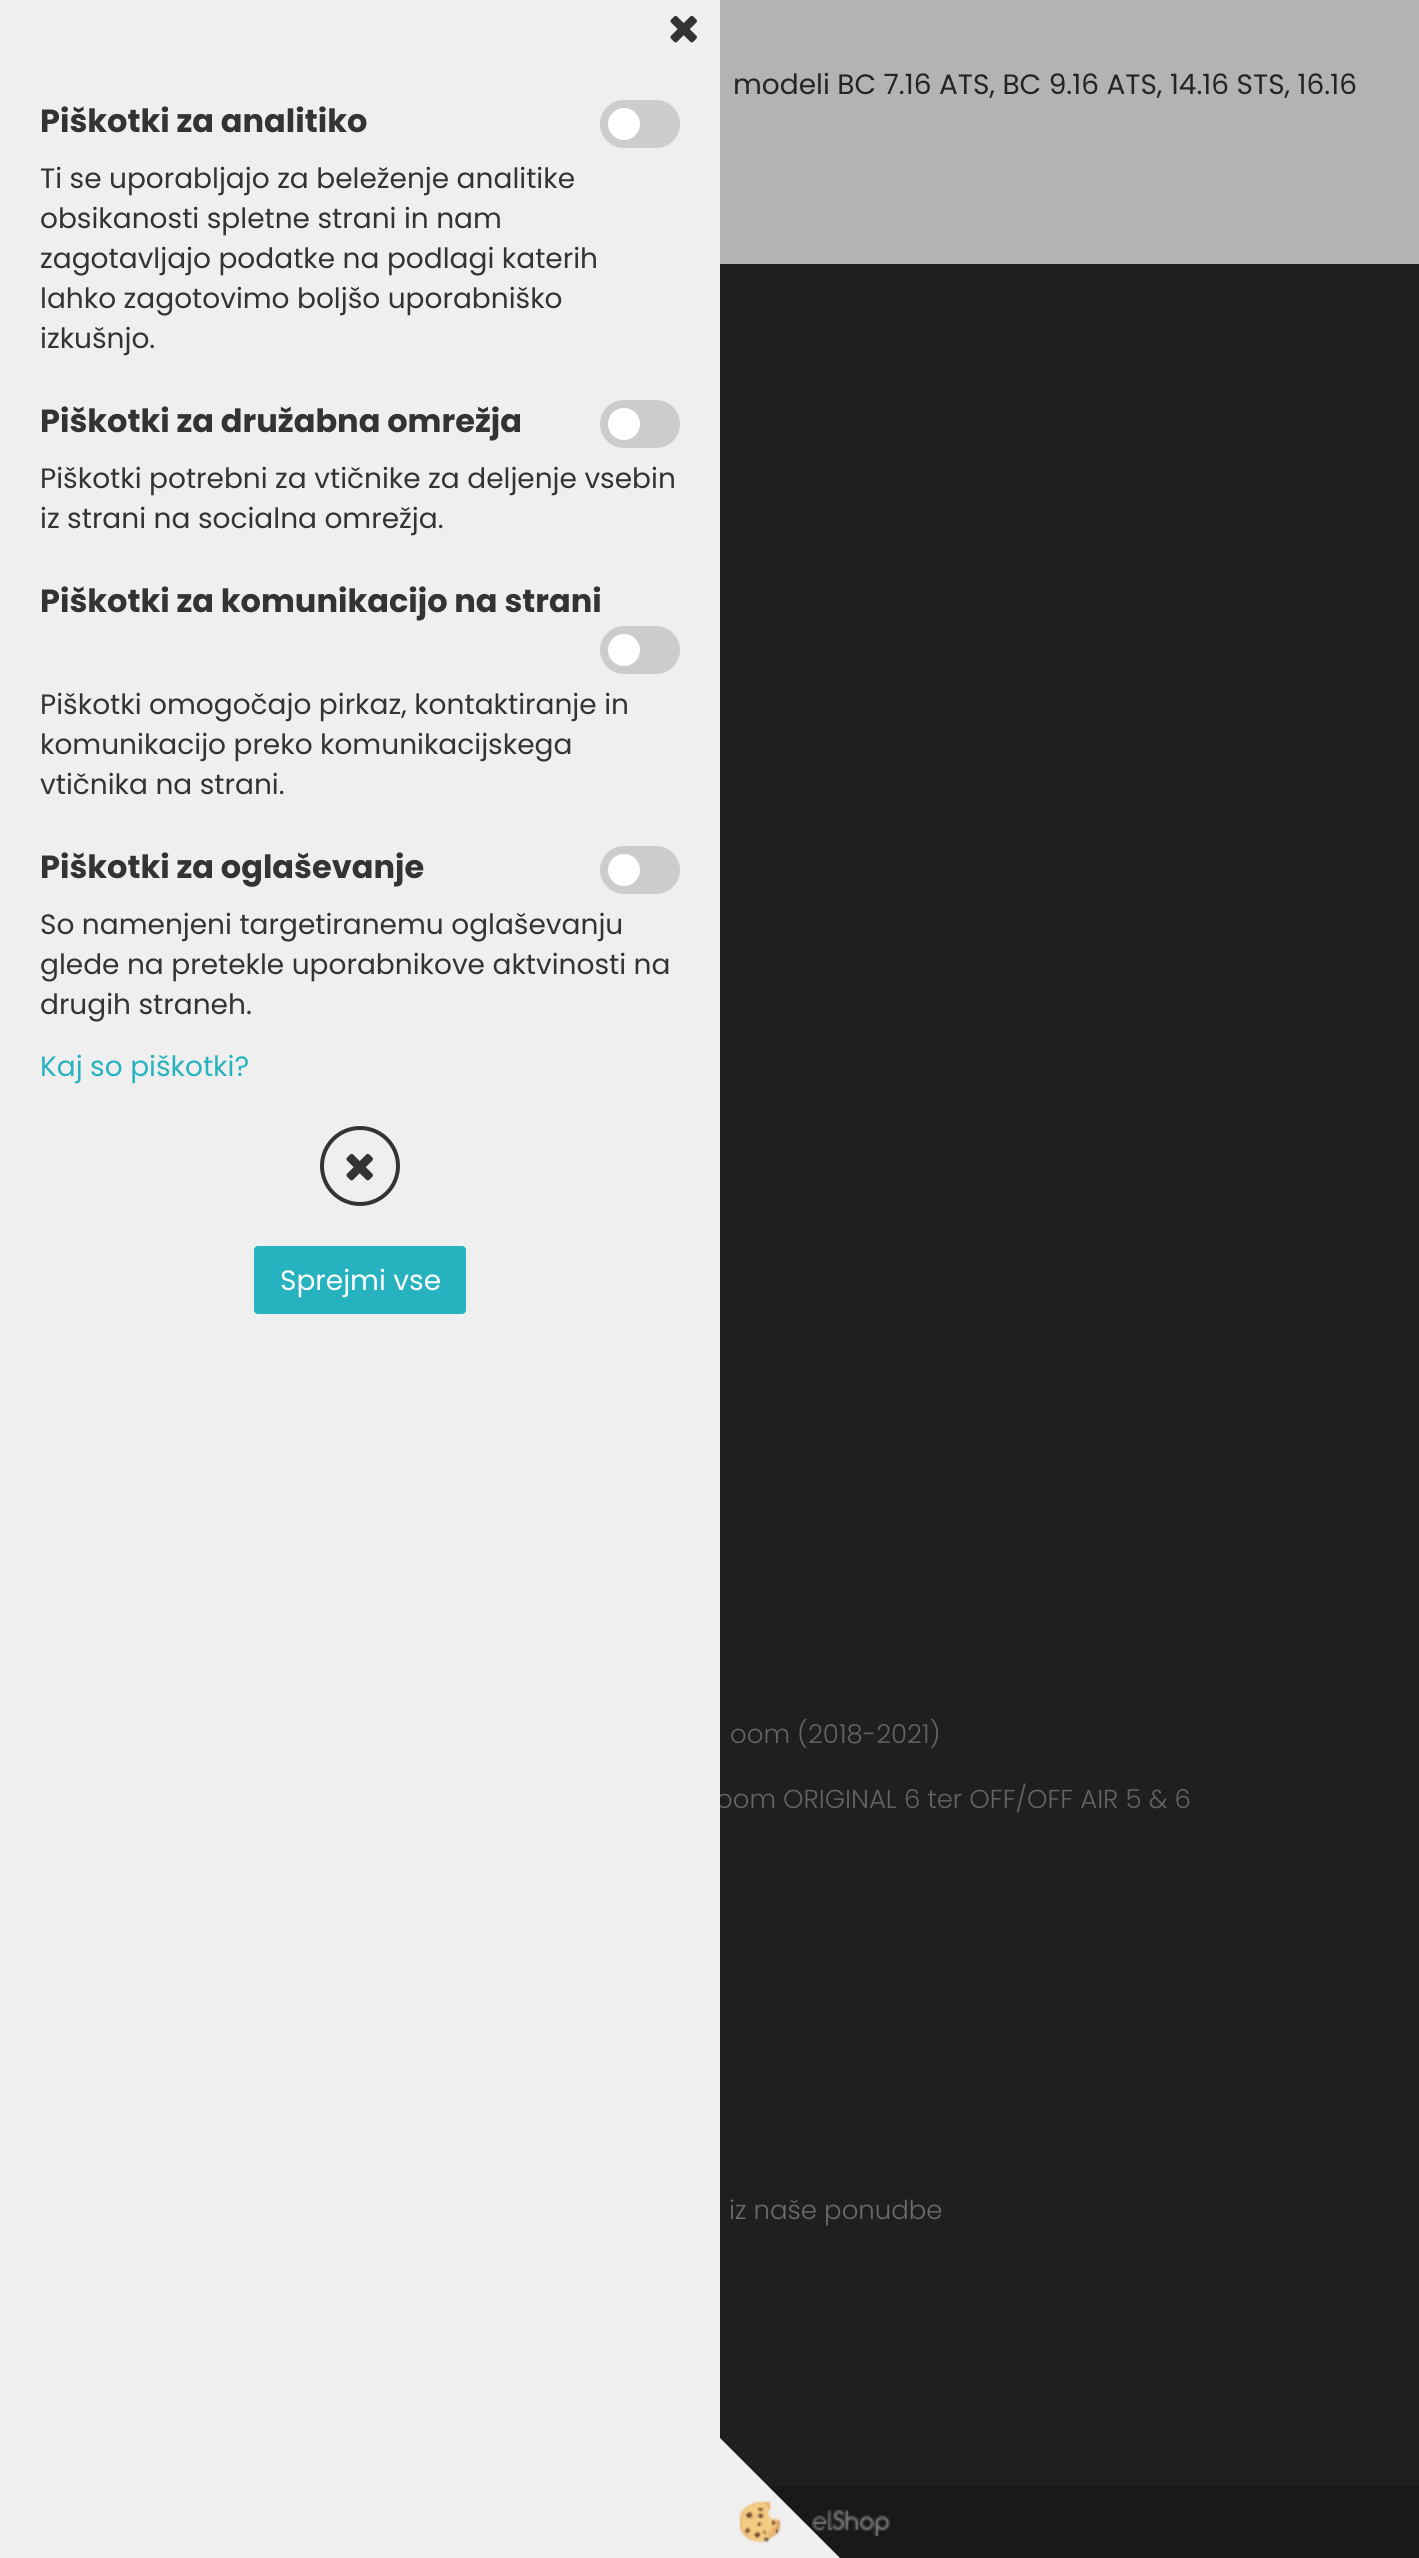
import math
import cairo


def use_color(cr, r, g, b):
  cr.set_source_rgb(r / 255, g / 255, b / 255)

def text(cr, x, y, s, family, size, color, bold=False, italic=False):
  cr.select_font_face(family, cairo.FONT_SLANT_ITALIC if italic else cairo.FONT_SLANT_NORMAL, cairo.FONT_WEIGHT_BOLD if bold else cairo.FONT_WEIGHT_NORMAL)
  cr.set_font_size(size)
  use_color(cr, *color)
  cr.move_to(x, y)
  cr.show_text(s)

def box(cr, x, y, w, h, *color):
  use_color(cr, *color)
  cr.rectangle(x, y, w, h)
  cr.fill()

def round_rect(cr, x, y, w, h, r):
  cr.new_sub_path()
  for i, (u, v) in enumerate([(x + w - r, y + h - r), (x + r, y + h - r), (x + r, y + r), (x + w - r, y + r)]):
    cr.arc(u, v, r, i * math.pi / 2, (i + 1) * math.pi / 2)
  cr.close_path()

def picture(cr, path, x, y, w, h):
  cr.save()
  cr.set_source_surface(cairo.ImageSurface.create_from_png(path), x, y)
  cr.rectangle(x, y, w, h)
  cr.fill()
  cr.restore()

def draw(cr):
  use_color(cr, 179, 179, 179)
  cr.paint()
  box(cr, 720, 264, 699, 2222, 31, 31, 31)
  box(cr, 768, 2486, 651, 72, 25, 25, 25)
  picture(cr, "img_03.png", 812, 2510, 78, 26)
  use_color(cr, 239, 239, 239)
  cr.new_path()
  cr.move_to(840, 2558)
  cr.line_to(720, 2558)
  cr.line_to(720, 2438)
  cr.close_path()
  cr.fill()
  picture(cr, "img_02.png", 739, 2501, 42, 42)
  text(cr, 733, 94, "modeli BC 7.16 ATS, BC 9.16 ATS, 14.16 STS, 16.16", "Poppins", 28, (36, 36, 36))
  text(cr, 730, 1743, "oom (2018-2021)", "Poppins Light", 26, (99, 99, 99))
  text(cr, 716, 1808, "oom ORIGINAL 6 ter OFF/OFF AIR 5 & 6", "Poppins Light", 26, (99, 99, 99))
  box(cr, 0, 0, 720, 2558, 239, 239, 239)
  cr.new_path()
  cr.arc(360, 1166, 38, 0, 2 * math.pi)
  use_color(cr, 51, 51, 51)
  cr.set_line_width(4)
  cr.stroke()
  picture(cr, "img_01.png", 346, 1153, 27, 28)
  use_color(cr, 204, 204, 204)
  round_rect(cr, 600, 846, 80, 48, 24)
  cr.fill()
  use_color(cr, 255, 255, 255)
  cr.arc(624, 870, 16, 0, 2 * math.pi)
  cr.fill()
  use_color(cr, 204, 204, 204)
  round_rect(cr, 600, 626, 80, 48, 24)
  cr.fill()
  use_color(cr, 255, 255, 255)
  cr.arc(624, 650, 16, 0, 2 * math.pi)
  cr.fill()
  use_color(cr, 204, 204, 204)
  round_rect(cr, 600, 400, 80, 48, 24)
  cr.fill()
  use_color(cr, 255, 255, 255)
  cr.arc(624, 424, 16, 0, 2 * math.pi)
  cr.fill()
  use_color(cr, 204, 204, 204)
  round_rect(cr, 600, 100, 80, 48, 24)
  cr.fill()
  use_color(cr, 255, 255, 255)
  cr.arc(624, 124, 16, 0, 2 * math.pi)
  cr.fill()
  picture(cr, "img_01.png", 670, 15, 27, 28)
  text(cr, 40, 1076, "Kaj so piškotki?", "Poppins", 28, (38, 179, 191))
  round_rect(cr, 255, 1247, 210, 66, 3)
  cr.fill_preserve()
  cr.set_line_width(2)
  cr.stroke()
  text(cr, 280, 1290, "Sprejmi vse", "Poppins", 28, (255, 255, 255))
  text(cr, 40, 1014, "drugih straneh.", "Poppins", 28, (51, 51, 51))
  text(cr, 40, 974, "glede na pretekle uporabnikove aktvinosti na", "Poppins", 28, (51, 51, 51))
  text(cr, 40, 934, "So namenjeni targetiranemu oglaševanju", "Poppins", 28, (51, 51, 51))
  text(cr, 40, 878, "Piškotki za oglaševanje", "Poppins", 32, (51, 51, 51), bold=True)
  text(cr, 40, 794, "vtičnika na strani.", "Poppins", 28, (51, 51, 51))
  text(cr, 40, 754, "komunikacijo preko komunikacijskega", "Poppins", 28, (51, 51, 51))
  text(cr, 40, 714, "Piškotki omogočajo pirkaz, kontaktiranje in", "Poppins", 28, (51, 51, 51))
  text(cr, 40, 612, "Piškotki za komunikacijo na strani", "Poppins", 32, (51, 51, 51), bold=True)
  text(cr, 40, 528, "iz strani na socialna omrežja.", "Poppins", 28, (51, 51, 51))
  text(cr, 40, 488, "Piškotki potrebni za vtičnike za deljenje vsebin", "Poppins", 28, (51, 51, 51))
  text(cr, 40, 432, "Piškotki za družabna omrežja", "Poppins", 32, (51, 51, 51), bold=True)
  text(cr, 40, 348, "izkušnjo.", "Poppins", 28, (51, 51, 51))
  text(cr, 40, 308, "lahko zagotovimo boljšo uporabniško", "Poppins", 28, (51, 51, 51))
  text(cr, 40, 268, "zagotavljajo podatke na podlagi katerih", "Poppins", 28, (51, 51, 51))
  text(cr, 40, 228, "obsikanosti spletne strani in nam", "Poppins", 28, (51, 51, 51))
  text(cr, 40, 188, "Ti se uporabljajo za beleženje analitike", "Poppins", 28, (51, 51, 51))
  text(cr, 40, 132, "Piškotki za analitiko", "Poppins", 32, (51, 51, 51), bold=True)
  text(cr, 729, 2219, "iz naše ponudbe", "Poppins Light", 26, (107, 107, 107))


surface = cairo.ImageSurface(cairo.FORMAT_RGB24, 1419, 2558)
cr = cairo.Context(surface)
options = cairo.FontOptions()
options.set_hint_metrics(cairo.HINT_METRICS_OFF)
options.set_hint_style(cairo.HINT_STYLE_NONE)
cr.set_font_options(options)
cr.set_miter_limit(4)
draw(cr)
surface.write_to_png("out.png")
